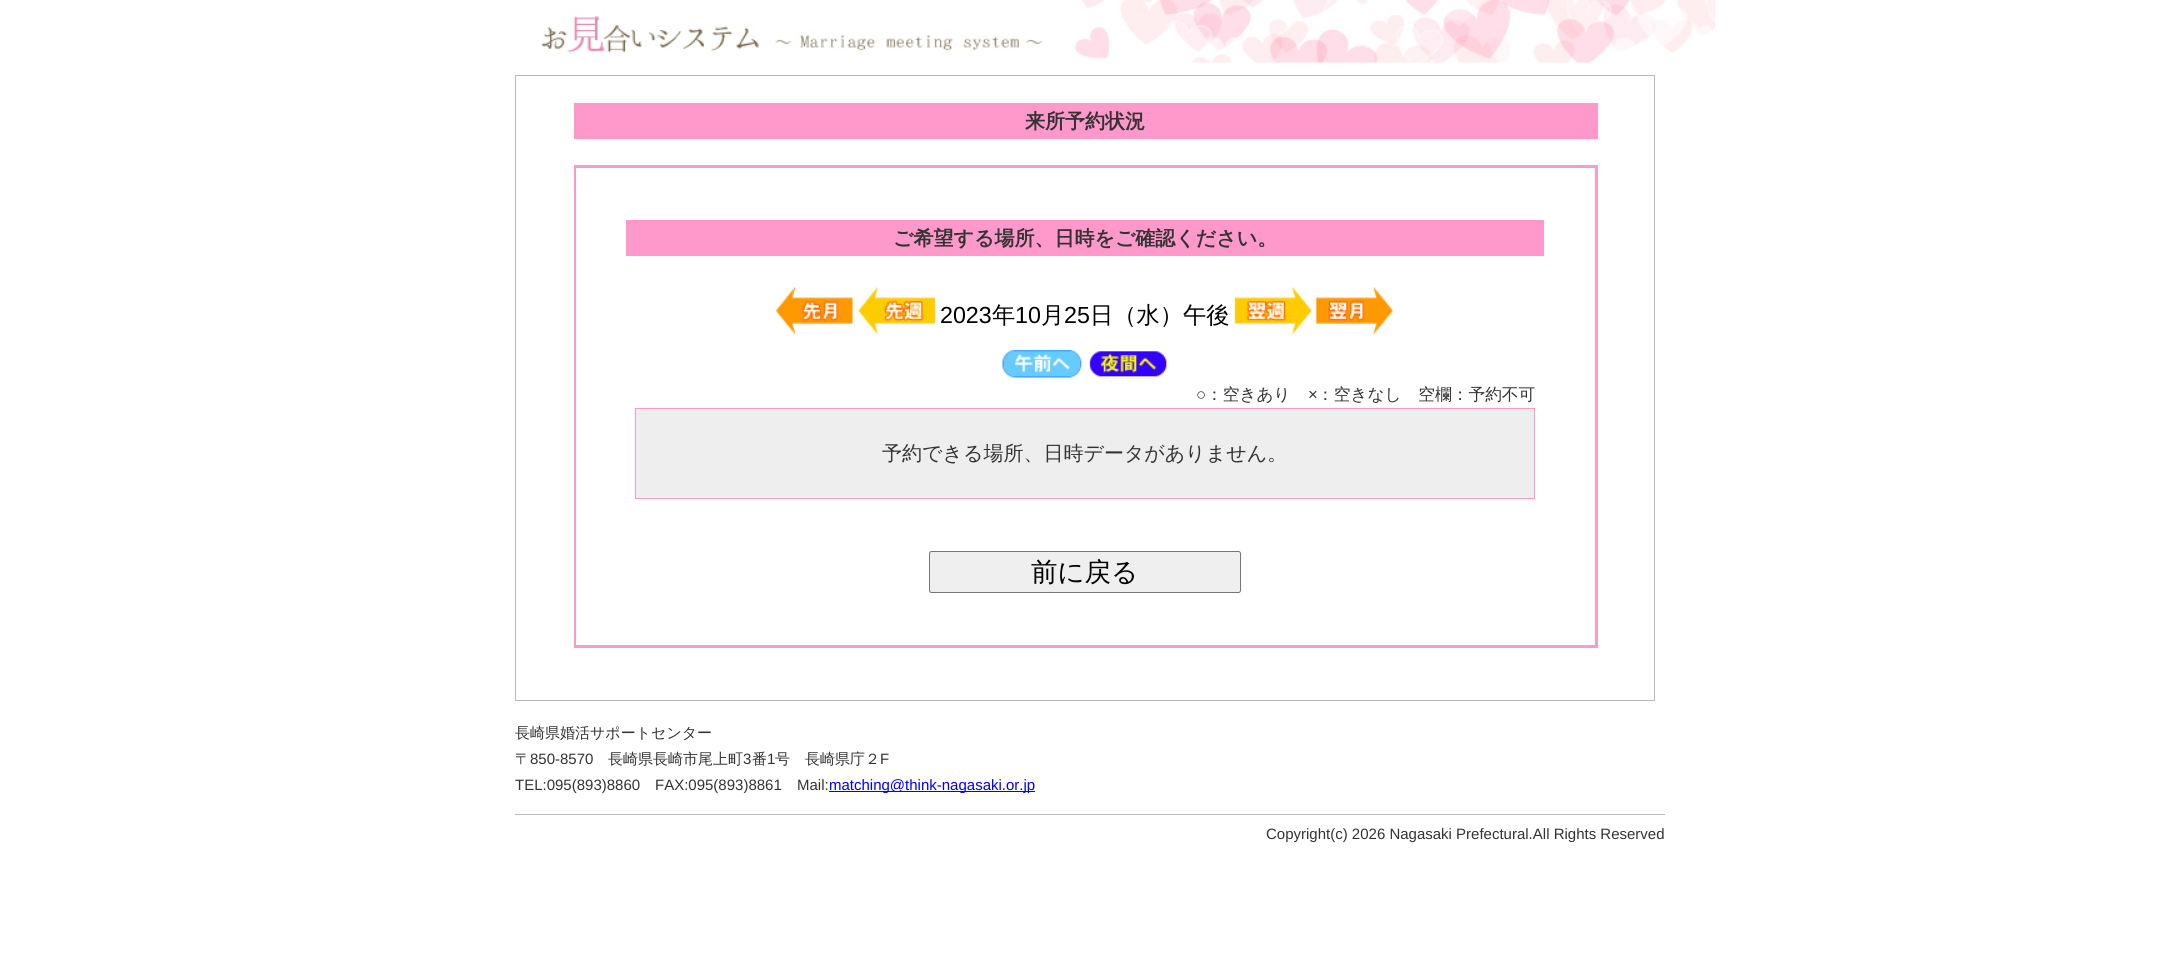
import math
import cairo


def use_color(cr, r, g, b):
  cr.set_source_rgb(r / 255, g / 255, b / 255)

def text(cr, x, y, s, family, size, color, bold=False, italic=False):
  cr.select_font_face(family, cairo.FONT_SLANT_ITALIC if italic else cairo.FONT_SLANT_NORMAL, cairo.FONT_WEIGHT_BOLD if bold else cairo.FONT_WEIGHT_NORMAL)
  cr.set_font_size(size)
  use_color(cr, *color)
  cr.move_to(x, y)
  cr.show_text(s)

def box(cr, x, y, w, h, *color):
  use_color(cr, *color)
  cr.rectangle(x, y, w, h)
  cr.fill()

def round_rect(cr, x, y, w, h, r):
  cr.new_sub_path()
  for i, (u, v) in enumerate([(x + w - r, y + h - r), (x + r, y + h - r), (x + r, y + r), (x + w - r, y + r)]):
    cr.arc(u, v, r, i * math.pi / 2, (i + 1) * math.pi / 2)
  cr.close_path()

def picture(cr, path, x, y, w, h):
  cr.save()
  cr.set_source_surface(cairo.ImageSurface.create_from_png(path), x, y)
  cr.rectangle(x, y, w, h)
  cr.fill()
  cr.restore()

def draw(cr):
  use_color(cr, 255, 255, 255)
  cr.paint()
  picture(cr, "img_01.png", 541, 0, 1174, 63)
  cr.rectangle(515.5, 75.5, 1139, 625)
  use_color(cr, 185, 185, 185)
  cr.set_line_width(1)
  cr.stroke()
  box(cr, 574, 103, 1024, 36, 255, 153, 204)
  box(cr, 574, 165, 1024, 483, 255, 153, 204)
  box(cr, 576, 168, 1019, 477, 255, 255, 255)
  box(cr, 626, 220, 918, 36, 255, 153, 204)
  picture(cr, "img_02.png", 776, 287, 77, 47)
  picture(cr, "img_03.png", 858, 287, 78, 47)
  picture(cr, "img_04.png", 1234, 287, 78, 47)
  picture(cr, "img_05.png", 1316, 287, 77, 47)
  picture(cr, "img_06.png", 1002, 349, 80, 29)
  picture(cr, "img_07.png", 1089, 351, 78, 26)
  box(cr, 636, 409, 898, 89, 238, 238, 238)
  box(cr, 635, 408, 900, 1, 255, 153, 204)
  box(cr, 1534, 408, 1, 91, 255, 153, 204)
  box(cr, 635, 498, 900, 1, 255, 153, 204)
  box(cr, 635, 408, 1, 91, 255, 153, 204)
  use_color(cr, 239, 239, 239)
  round_rect(cr, 929.5, 551.5, 311, 41, 2)
  cr.fill_preserve()
  use_color(cr, 118, 118, 118)
  cr.stroke()
  box(cr, 515, 814, 1150, 1, 185, 185, 185)
  box(cr, 829, 791, 206, 1, 0, 0, 255)
  text(cr, 1025, 128, "来所予約状況", "WenQuanYi Zen Hei", 20, (51, 51, 51), bold=True)
  text(cr, 893, 245, "ご希望する場所、日時をご確認ください。", "WenQuanYi Zen Hei", 20, (51, 51, 51), bold=True)
  text(cr, 940, 323, "2023", "Liberation Sans", 23.25, (0, 0, 0))
  text(cr, 992, 323, "年", "WenQuanYi Zen Hei Medium", 23.25, (0, 0, 0))
  text(cr, 1015, 323, "10", "Liberation Sans", 23.25, (0, 0, 0))
  text(cr, 1041, 323, "月", "WenQuanYi Zen Hei Medium", 23.25, (0, 0, 0))
  text(cr, 1064, 323, "25", "Liberation Sans", 23.25, (0, 0, 0))
  text(cr, 1090, 323, "日（水）午後", "WenQuanYi Zen Hei Medium", 23.25, (0, 0, 0))
  text(cr, 1196, 400, "○", "Liberation Sans", 16.7, (51, 51, 51))
  text(cr, 1206, 400, "：空きあり", "WenQuanYi Zen Hei Medium", 16.7, (51, 51, 51))
  text(cr, 1308, 400, "×", "Liberation Sans", 16.7, (51, 51, 51))
  text(cr, 1317, 400, "：空きなし　空欄：予約不可", "WenQuanYi Zen Hei Medium", 16.7, (51, 51, 51))
  text(cr, 882, 460, "予約できる場所、日時データがありません。", "WenQuanYi Zen Hei Medium", 20, (51, 51, 51))
  text(cr, 1031, 581, "前に戻る", "WenQuanYi Zen Hei Medium", 26.5, (0, 0, 0))
  text(cr, 515, 738, "長崎県婚活サポートセンター", "WenQuanYi Zen Hei Medium", 15, (51, 51, 51))
  text(cr, 515, 764, "〒", "WenQuanYi Zen Hei Medium", 15, (51, 51, 51))
  text(cr, 530, 764, "850-8570", "Liberation Sans", 15, (51, 51, 51))
  text(cr, 608, 764, "長崎県長崎市尾上町", "WenQuanYi Zen Hei Medium", 15, (51, 51, 51))
  text(cr, 743, 764, "3", "Liberation Sans", 15, (51, 51, 51))
  text(cr, 752, 764, "番", "WenQuanYi Zen Hei Medium", 15, (51, 51, 51))
  text(cr, 767, 764, "1", "Liberation Sans", 15, (51, 51, 51))
  text(cr, 775, 764, "号　長崎県庁２", "WenQuanYi Zen Hei Medium", 15, (51, 51, 51))
  text(cr, 880, 764, "F", "Liberation Sans", 15, (51, 51, 51))
  text(cr, 515, 790, "TEL:095(893)8860", "Liberation Sans", 15, (51, 51, 51))
  text(cr, 655, 790, "FAX:095(893)8861", "Liberation Sans", 15, (51, 51, 51))
  text(cr, 797, 790, "Mail:", "Liberation Sans", 15, (51, 51, 51))
  text(cr, 829, 790, "matching@think-nagasaki.or.jp", "Liberation Sans", 15, (0, 0, 255))
  text(cr, 1266, 839, "Copyright(c) 2026 Nagasaki Prefectural.All Rights Reserved", "Liberation Sans", 15, (51, 51, 51))


surface = cairo.ImageSurface(cairo.FORMAT_RGB24, 2180, 954)
cr = cairo.Context(surface)
options = cairo.FontOptions()
options.set_hint_metrics(cairo.HINT_METRICS_OFF)
options.set_hint_style(cairo.HINT_STYLE_NONE)
cr.set_font_options(options)
cr.set_miter_limit(4)
draw(cr)
surface.write_to_png("out.png")
